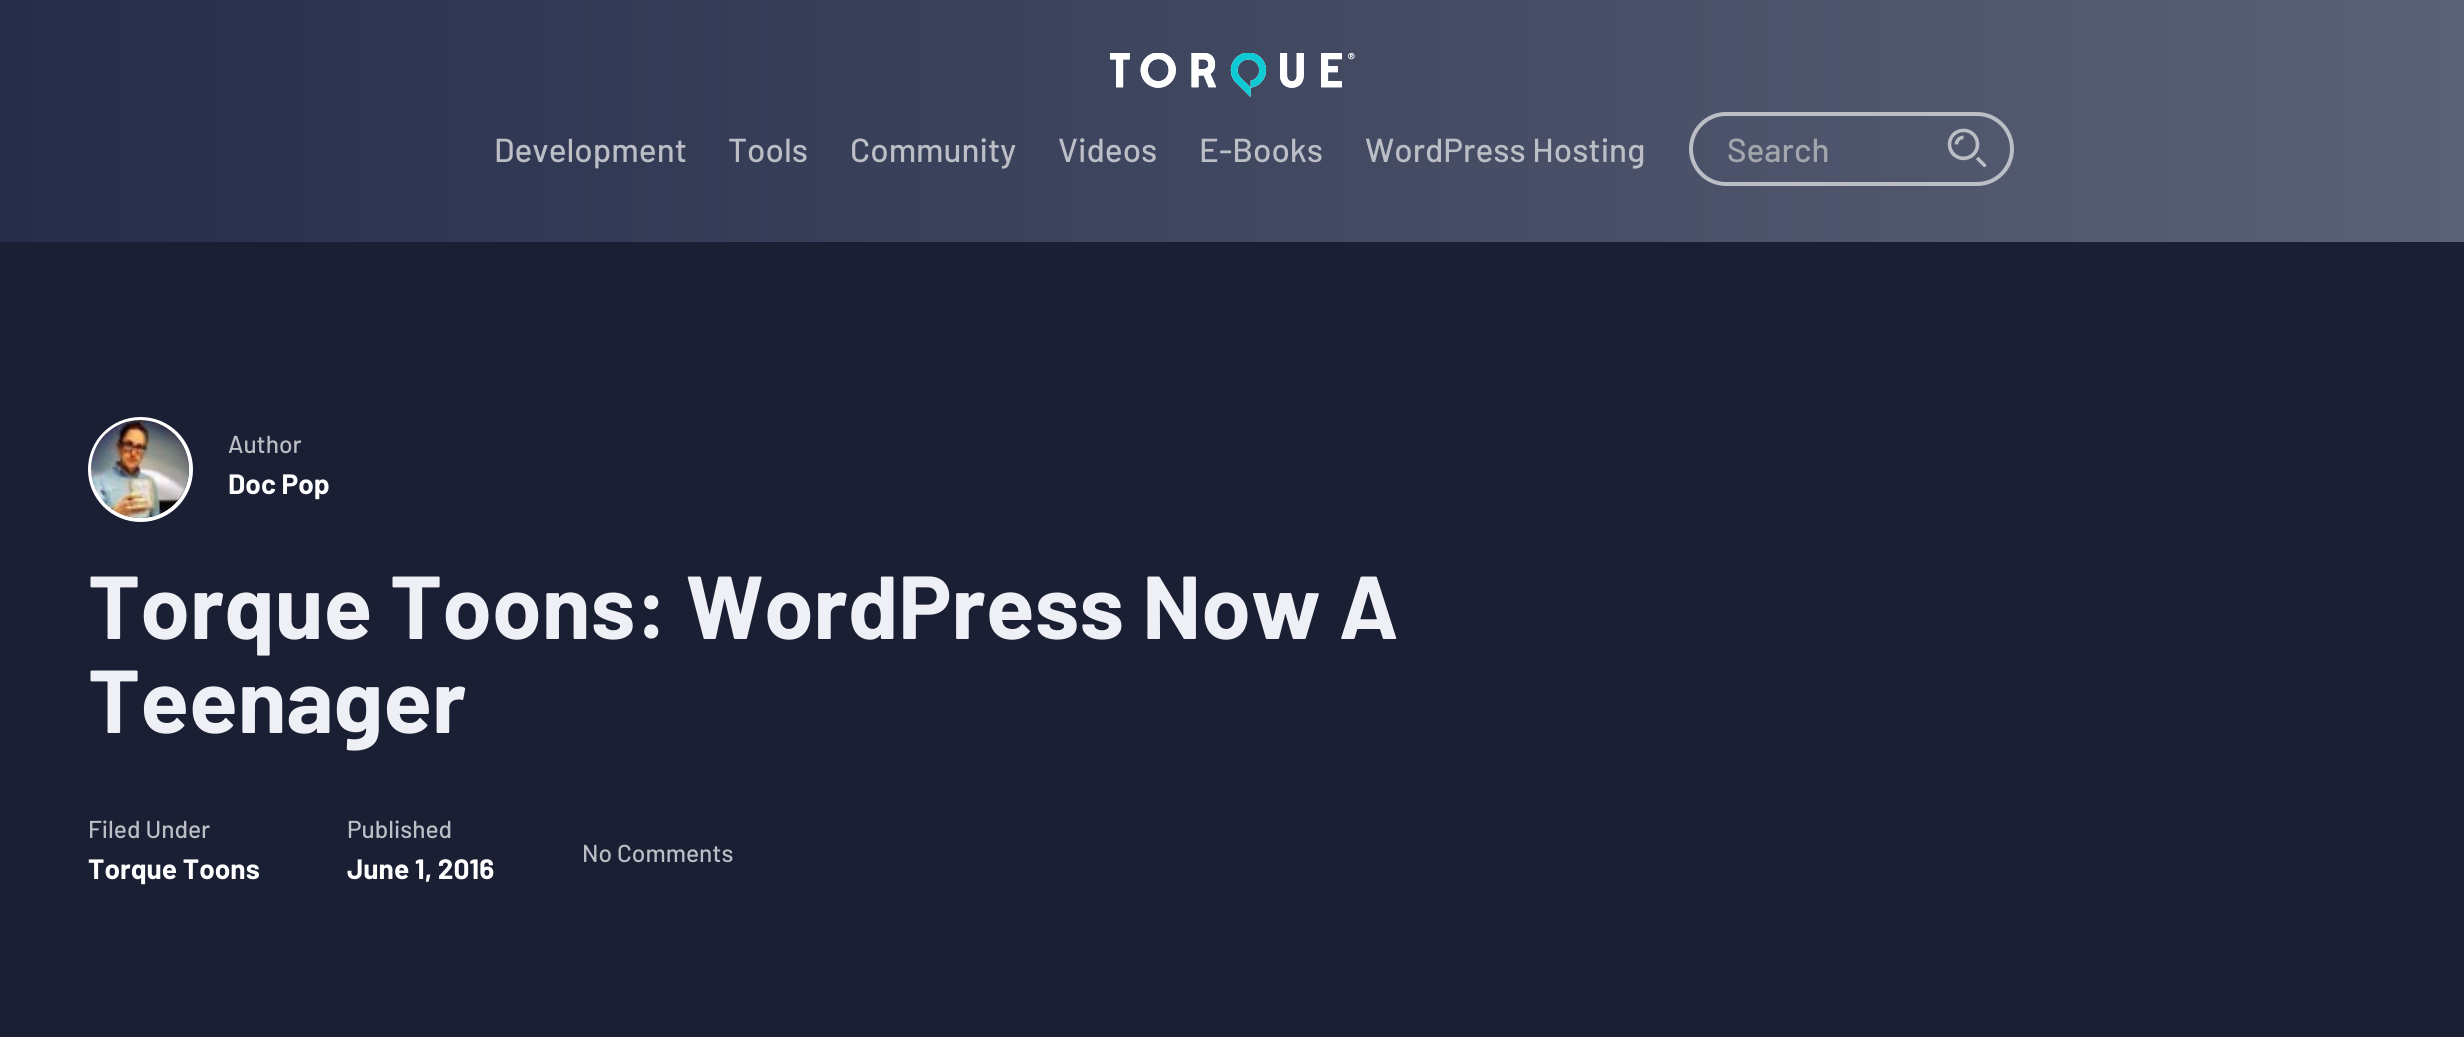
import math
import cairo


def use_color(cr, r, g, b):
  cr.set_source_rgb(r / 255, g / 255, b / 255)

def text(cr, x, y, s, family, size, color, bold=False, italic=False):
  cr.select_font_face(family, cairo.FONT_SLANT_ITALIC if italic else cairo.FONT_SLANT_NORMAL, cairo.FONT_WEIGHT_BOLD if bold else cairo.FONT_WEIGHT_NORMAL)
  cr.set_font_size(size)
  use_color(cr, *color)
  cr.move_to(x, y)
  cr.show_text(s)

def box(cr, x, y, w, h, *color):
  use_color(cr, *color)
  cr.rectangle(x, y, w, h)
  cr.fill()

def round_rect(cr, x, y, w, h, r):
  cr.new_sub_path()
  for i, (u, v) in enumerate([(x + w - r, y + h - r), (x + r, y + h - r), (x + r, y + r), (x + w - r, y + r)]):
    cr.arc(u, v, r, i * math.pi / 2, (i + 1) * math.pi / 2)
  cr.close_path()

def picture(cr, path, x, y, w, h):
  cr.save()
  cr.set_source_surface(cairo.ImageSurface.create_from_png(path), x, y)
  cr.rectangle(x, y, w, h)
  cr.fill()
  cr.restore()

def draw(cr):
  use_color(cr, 255, 255, 255)
  cr.paint()
  gradient = cairo.LinearGradient(0, 121, 2464, 121)
  gradient.add_color_stop_rgba(0, 0.145, 0.176, 0.29, 1)
  gradient.add_color_stop_rgba(1, 0.357, 0.384, 0.463, 1)
  cr.set_source(gradient)
  cr.rectangle(0, 0, 2464, 242)
  cr.fill()
  picture(cr, "img_01.png", 1110, 53, 245, 45)
  round_rect(cr, 1691, 114, 321, 70, 35)
  use_color(cr, 188, 190, 198)
  cr.set_line_width(4)
  cr.stroke()
  picture(cr, "img_02.png", 1947, 128, 40, 39)
  box(cr, 0, 242, 2464, 795, 26, 31, 51)
  cr.arc(140.5, 469.5, 50.5, 0, 2 * math.pi)
  use_color(cr, 255, 255, 255)
  cr.stroke()
  picture(cr, "img_03.png", 91, 420, 98, 98)
  text(cr, 494, 162, "Development", "Barlow Medium", 33.25, (188, 190, 198))
  text(cr, 728, 162, "Tools", "Barlow Medium", 33.25, (188, 190, 198))
  text(cr, 850, 162, "Community", "Barlow Medium", 33.25, (188, 190, 198))
  text(cr, 1058, 162, "Videos", "Barlow Medium", 33.25, (188, 190, 198))
  text(cr, 1199, 162, "E-Books", "Barlow Medium", 33.25, (188, 190, 198))
  text(cr, 1365, 162, "WordPress Hosting", "Barlow Medium", 33.25, (188, 190, 198))
  text(cr, 1727, 162, "Search", "Barlow Medium", 33.25, (164, 166, 174))
  text(cr, 228, 453, "Author", "Barlow Medium", 24.5, (188, 190, 198))
  text(cr, 228, 494, "Doc Pop", "Barlow", 28, (255, 255, 255), bold=True)
  text(cr, 88, 639, "Torque Toons: WordPress Now A", "Barlow", 89.25, (238, 240, 246), bold=True)
  text(cr, 88, 733, "Teenager", "Barlow", 89.25, (238, 240, 246), bold=True)
  text(cr, 88, 838, "Filed Under", "Barlow Medium", 24.5, (188, 190, 198))
  text(cr, 88, 879, "Torque Toons", "Barlow", 28, (255, 255, 255), bold=True)
  text(cr, 347, 838, "Published", "Barlow Medium", 24.5, (188, 190, 198))
  text(cr, 347, 879, "June 1, 2016", "Barlow", 28, (255, 255, 255), bold=True)
  text(cr, 582, 862, "No Comments", "Barlow Medium", 24.5, (188, 190, 198))


surface = cairo.ImageSurface(cairo.FORMAT_RGB24, 2464, 1037)
cr = cairo.Context(surface)
options = cairo.FontOptions()
options.set_hint_metrics(cairo.HINT_METRICS_OFF)
options.set_hint_style(cairo.HINT_STYLE_NONE)
cr.set_font_options(options)
cr.set_miter_limit(4)
draw(cr)
surface.write_to_png("out.png")
